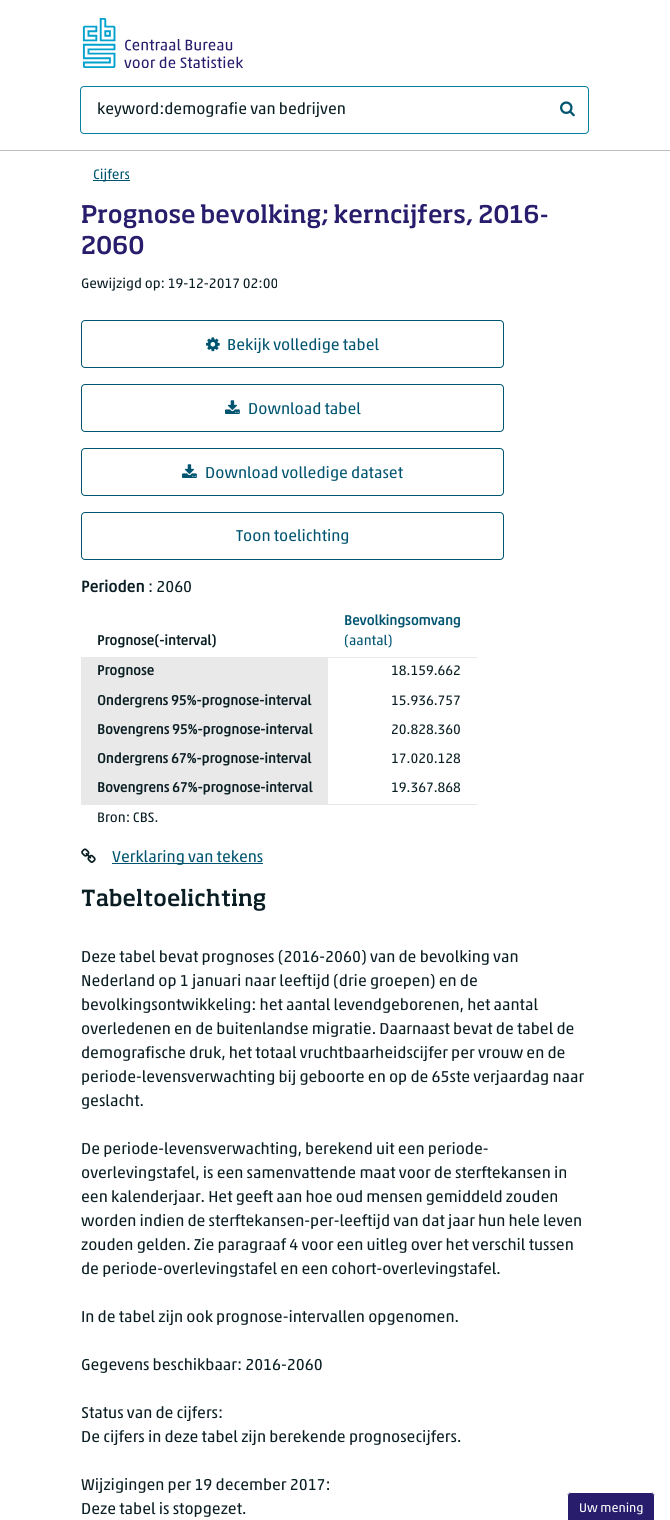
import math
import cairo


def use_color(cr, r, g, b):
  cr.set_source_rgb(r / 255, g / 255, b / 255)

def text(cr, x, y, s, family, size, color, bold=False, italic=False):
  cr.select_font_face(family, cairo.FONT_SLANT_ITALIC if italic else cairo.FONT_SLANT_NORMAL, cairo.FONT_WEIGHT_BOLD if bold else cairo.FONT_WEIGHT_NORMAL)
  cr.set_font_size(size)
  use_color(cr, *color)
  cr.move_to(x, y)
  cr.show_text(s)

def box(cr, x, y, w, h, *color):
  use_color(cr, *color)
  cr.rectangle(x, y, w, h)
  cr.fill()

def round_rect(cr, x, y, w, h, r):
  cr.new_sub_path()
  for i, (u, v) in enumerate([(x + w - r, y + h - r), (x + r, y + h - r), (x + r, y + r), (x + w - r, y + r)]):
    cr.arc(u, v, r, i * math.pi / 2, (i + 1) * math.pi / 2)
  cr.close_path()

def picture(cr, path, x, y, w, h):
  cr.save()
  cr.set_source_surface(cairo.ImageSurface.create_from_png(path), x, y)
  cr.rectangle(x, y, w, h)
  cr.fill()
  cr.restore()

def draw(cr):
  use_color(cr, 255, 255, 255)
  cr.paint()
  picture(cr, "img_01.png", 82, 18, 161, 50)
  round_rect(cr, 80.5, 86.5, 508, 47, 3.5)
  use_color(cr, 5, 128, 161)
  cr.set_line_width(1)
  cr.stroke()
  picture(cr, "img_02.png", 560, 101, 15, 16)
  box(cr, 0, 150, 670, 1, 189, 188, 188)
  box(cr, 93, 180, 37, 1, 0, 84, 112)
  round_rect(cr, 81.5, 320.5, 422, 47, 3.5)
  cr.stroke()
  picture(cr, "img_03.png", 206, 337, 14, 15)
  round_rect(cr, 81.5, 384.5, 422, 47, 3.5)
  cr.stroke()
  picture(cr, "img_04.png", 225, 400, 15, 14)
  round_rect(cr, 81.5, 448.5, 422, 47, 3.5)
  cr.stroke()
  picture(cr, "img_04.png", 182, 464, 15, 14)
  round_rect(cr, 81.5, 512.5, 422, 47, 3.5)
  cr.stroke()
  box(cr, 81, 657, 247, 148, 233, 233, 233)
  box(cr, 328, 657, 149, 1, 233, 233, 233)
  box(cr, 328, 804, 149, 1, 233, 233, 233)
  picture(cr, "img_05.png", 81, 848, 15, 15)
  box(cr, 112, 863, 151, 1, 0, 84, 112)
  use_color(cr, 39, 29, 108)
  cr.new_path()
  cr.move_to(571, 1492)
  cr.line_to(651, 1492)
  cr.curve_to(653, 1492, 655, 1494, 655, 1496)
  cr.line_to(655, 1520)
  cr.line_to(567, 1520)
  cr.line_to(567, 1496)
  cr.curve_to(567, 1494, 569, 1492, 571, 1492)
  cr.close_path()
  cr.fill()
  use_color(cr, 255, 255, 255)
  cr.set_fill_rule(cairo.FILL_RULE_EVEN_ODD)
  cr.new_path()
  cr.move_to(571, 1492)
  cr.line_to(651, 1492)
  cr.curve_to(653, 1492, 655, 1494, 655, 1496)
  cr.line_to(655, 1520)
  cr.line_to(567, 1520)
  cr.line_to(567, 1496)
  cr.curve_to(567, 1494, 569, 1492, 571, 1492)
  cr.close_path()
  cr.move_to(571, 1493)
  cr.line_to(651, 1493)
  cr.curve_to(653, 1493, 654, 1494, 654, 1496)
  cr.line_to(654, 1520)
  cr.line_to(568, 1520)
  cr.line_to(568, 1496)
  cr.curve_to(568, 1494, 569, 1493, 571, 1493)
  cr.close_path()
  cr.fill()
  text(cr, 97, 114, "keyword:demografie van bedrijven", "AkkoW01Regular", 16, (9, 29, 35))
  text(cr, 93, 179, "Cijfers", "AkkoW01Regular", 13.9, (0, 84, 112))
  text(cr, 81, 223, "Prognose bevolking; kerncijfers, 2016-", "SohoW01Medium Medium", 24, (39, 29, 108))
  text(cr, 81, 254, "2060", "SohoW01Medium Medium", 24, (39, 29, 108))
  text(cr, 81, 288, "Gewijzigd op: 19-12-2017 02:00", "AkkoW01Regular", 13.9, (9, 29, 35))
  text(cr, 227, 350, "Bekijk volledige tabel", "AkkoW01Regular", 16, (0, 84, 112))
  text(cr, 248, 414, "Download tabel", "AkkoW01Regular", 16, (0, 84, 112))
  text(cr, 205, 478, "Download volledige dataset", "AkkoW01Regular", 16, (0, 84, 112))
  text(cr, 236, 541, "Toon toelichting", "AkkoW01Regular", 16, (0, 84, 112))
  text(cr, 81, 592, "Perioden", "AkkoW01Regular", 16, (9, 29, 35), bold=True)
  text(cr, 148, 592, ": 2060", "AkkoW01Regular", 16, (9, 29, 35))
  text(cr, 97, 645, "Prognose(-interval)", "AkkoW01Regular", 13.9, (9, 29, 35), bold=True)
  text(cr, 344, 625, "Bevolkingsomvang", "AkkoW01Regular", 13.9, (0, 84, 112), bold=True)
  text(cr, 344, 645, "(aantal)", "AkkoW01Regular", 13.9, (0, 84, 112))
  text(cr, 97, 675, "Prognose", "AkkoW01Regular", 13.9, (9, 29, 35), bold=True)
  text(cr, 391, 675, "18.159.662", "AkkoW01Regular", 13.9, (9, 29, 35))
  text(cr, 97, 705, "Ondergrens 95%-prognose-interval", "AkkoW01Regular", 13.9, (9, 29, 35), bold=True)
  text(cr, 391, 705, "15.936.757", "AkkoW01Regular", 13.9, (9, 29, 35))
  text(cr, 97, 734, "Bovengrens 95%-prognose-interval", "AkkoW01Regular", 13.9, (9, 29, 35), bold=True)
  text(cr, 391, 734, "20.828.360", "AkkoW01Regular", 13.9, (9, 29, 35))
  text(cr, 97, 763, "Ondergrens 67%-prognose-interval", "AkkoW01Regular", 13.9, (9, 29, 35), bold=True)
  text(cr, 391, 763, "17.020.128", "AkkoW01Regular", 13.9, (9, 29, 35))
  text(cr, 97, 792, "Bovengrens 67%-prognose-interval", "AkkoW01Regular", 13.9, (9, 29, 35), bold=True)
  text(cr, 391, 792, "19.367.868", "AkkoW01Regular", 13.9, (9, 29, 35))
  text(cr, 97, 822, "Bron: CBS.", "AkkoW01Regular", 13.9, (9, 29, 35))
  text(cr, 112, 862, "Verklaring van tekens", "AkkoW01Regular", 16, (0, 84, 112))
  text(cr, 81, 906, "Tabeltoelichting", "SohoW01Medium Medium", 22, (9, 29, 35))
  text(cr, 81, 962, "Deze tabel bevat prognoses (2016-2060) van de bevolking van", "AkkoW01Regular", 16, (9, 29, 35))
  text(cr, 81, 986, "Nederland op 1 januari naar leeftijd (drie groepen) en de", "AkkoW01Regular", 16, (9, 29, 35))
  text(cr, 81, 1010, "bevolkingsontwikkeling: het aantal levendgeborenen, het aantal", "AkkoW01Regular", 16, (9, 29, 35))
  text(cr, 81, 1034, "overledenen en de buitenlandse migratie. Daarnaast bevat de tabel de", "AkkoW01Regular", 16, (9, 29, 35))
  text(cr, 81, 1058, "demografische druk, het totaal vruchtbaarheidscijfer per vrouw en de", "AkkoW01Regular", 16, (9, 29, 35))
  text(cr, 81, 1082, "periode-levensverwachting bij geboorte en op de 65ste verjaardag naar", "AkkoW01Regular", 16, (9, 29, 35))
  text(cr, 81, 1106, "geslacht.", "AkkoW01Regular", 16, (9, 29, 35))
  text(cr, 81, 1154, "De periode-levensverwachting, berekend uit een periode-", "AkkoW01Regular", 16, (9, 29, 35))
  text(cr, 81, 1178, "overlevingstafel, is een samenvattende maat voor de sterftekansen in", "AkkoW01Regular", 16, (9, 29, 35))
  text(cr, 81, 1202, "een kalenderjaar. Het geeft aan hoe oud mensen gemiddeld zouden", "AkkoW01Regular", 16, (9, 29, 35))
  text(cr, 81, 1226, "worden indien de sterftekansen-per-leeftijd van dat jaar hun hele leven", "AkkoW01Regular", 16, (9, 29, 35))
  text(cr, 81, 1250, "zouden gelden. Zie paragraaf 4 voor een uitleg over het verschil tussen", "AkkoW01Regular", 16, (9, 29, 35))
  text(cr, 81, 1274, "de periode-overlevingstafel en een cohort-overlevingstafel.", "AkkoW01Regular", 16, (9, 29, 35))
  text(cr, 81, 1322, "In de tabel zijn ook prognose-intervallen opgenomen.", "AkkoW01Regular", 16, (9, 29, 35))
  text(cr, 81, 1370, "Gegevens beschikbaar: 2016-2060", "AkkoW01Regular", 16, (9, 29, 35))
  text(cr, 81, 1418, "Status van de cijfers:", "AkkoW01Regular", 16, (9, 29, 35))
  text(cr, 81, 1442, "De cijfers in deze tabel zijn berekende prognosecijfers.", "AkkoW01Regular", 16, (9, 29, 35))
  text(cr, 81, 1490, "Wijzigingen per 19 december 2017:", "AkkoW01Regular", 16, (9, 29, 35))
  text(cr, 81, 1514, "Deze tabel is stopgezet.", "AkkoW01Regular", 16, (9, 29, 35))
  text(cr, 579, 1512, "Uw mening", "AkkoW01Regular", 12.75, (255, 255, 255))


surface = cairo.ImageSurface(cairo.FORMAT_RGB24, 670, 1520)
cr = cairo.Context(surface)
options = cairo.FontOptions()
options.set_hint_metrics(cairo.HINT_METRICS_OFF)
options.set_hint_style(cairo.HINT_STYLE_NONE)
cr.set_font_options(options)
cr.set_miter_limit(4)
draw(cr)
surface.write_to_png("out.png")
